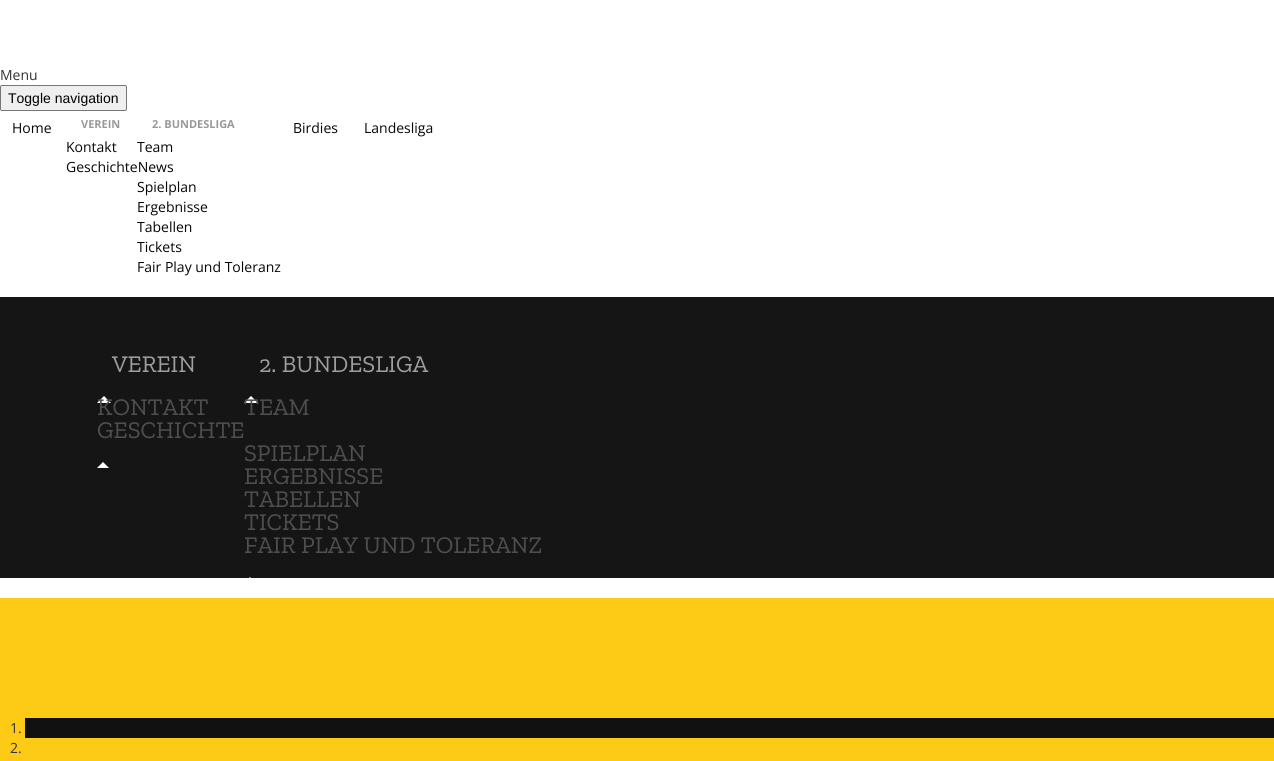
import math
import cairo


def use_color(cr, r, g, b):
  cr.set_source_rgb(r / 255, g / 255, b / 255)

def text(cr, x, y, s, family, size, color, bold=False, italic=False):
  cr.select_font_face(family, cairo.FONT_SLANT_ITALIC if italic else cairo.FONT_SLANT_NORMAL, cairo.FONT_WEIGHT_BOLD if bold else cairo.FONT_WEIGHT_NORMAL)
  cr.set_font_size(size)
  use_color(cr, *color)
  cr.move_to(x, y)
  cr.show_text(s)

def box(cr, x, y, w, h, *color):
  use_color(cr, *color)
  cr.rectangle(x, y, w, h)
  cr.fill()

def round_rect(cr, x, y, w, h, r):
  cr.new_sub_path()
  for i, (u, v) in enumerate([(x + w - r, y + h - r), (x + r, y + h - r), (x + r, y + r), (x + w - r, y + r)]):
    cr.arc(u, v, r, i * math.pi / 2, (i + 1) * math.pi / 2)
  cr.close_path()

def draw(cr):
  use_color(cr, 255, 255, 255)
  cr.paint()
  use_color(cr, 239, 239, 239)
  round_rect(cr, 0.5, 85.5, 126, 25, 1.5)
  cr.fill_preserve()
  use_color(cr, 118, 118, 118)
  cr.set_line_width(1)
  cr.stroke()
  box(cr, 0, 297, 1274, 281, 21, 21, 21)
  use_color(cr, 255, 255, 255)
  cr.new_path()
  cr.move_to(111, 403)
  cr.line_to(97, 403)
  cr.line_to(104, 396)
  cr.close_path()
  cr.fill()
  cr.new_path()
  cr.move_to(109, 468)
  cr.line_to(97, 468)
  cr.line_to(103, 462)
  cr.close_path()
  cr.fill()
  cr.new_path()
  cr.move_to(258, 403)
  cr.line_to(244, 403)
  cr.line_to(251, 396)
  cr.close_path()
  cr.fill()
  cr.new_path()
  cr.move_to(256, 583)
  cr.line_to(244, 583)
  cr.line_to(250, 577)
  cr.close_path()
  cr.fill()
  box(cr, 0, 598, 1274, 163, 253, 203, 21)
  box(cr, 25, 718, 1249, 20, 17, 17, 17)
  text(cr, 0, 80, "Menu", "Open Sans", 14, (51, 51, 51))
  text(cr, 8, 103, "Toggle navigation", "Liberation Sans", 14, (0, 0, 0))
  text(cr, 12, 133, "Home", "Open Sans", 14, (6, 6, 6))
  text(cr, 81, 128, "VEREIN", "Open Sans", 11, (153, 153, 153), bold=True)
  text(cr, 66, 152, "Kontakt", "Open Sans", 14, (6, 6, 6))
  text(cr, 66, 172, "GeschichteNews", "Open Sans", 14, (6, 6, 6))
  text(cr, 152, 128, "2. BUNDESLIGA", "Open Sans", 11, (153, 153, 153), bold=True)
  text(cr, 137, 152, "Team", "Open Sans", 14, (6, 6, 6))
  text(cr, 137, 192, "Spielplan", "Open Sans", 14, (6, 6, 6))
  text(cr, 137, 212, "Ergebnisse", "Open Sans", 14, (6, 6, 6))
  text(cr, 137, 232, "Tabellen", "Open Sans", 14, (6, 6, 6))
  text(cr, 137, 252, "Tickets", "Open Sans", 14, (6, 6, 6))
  text(cr, 137, 272, "Fair Play und Toleranz", "Open Sans", 14, (6, 6, 6))
  text(cr, 293, 133, "Birdies", "Open Sans", 14, (6, 6, 6))
  text(cr, 364, 133, "Landesliga", "Open Sans", 14, (6, 6, 6))
  text(cr, 112, 372, "VEREIN", "Zilla Slab", 24, (159, 159, 159))
  text(cr, 97, 415, "KONTAKT", "Zilla Slab", 24, (79, 79, 79))
  text(cr, 97, 438, "GESCHICHTE", "Zilla Slab", 24, (79, 79, 79))
  text(cr, 259, 372, "2. BUNDESLIGA", "Zilla Slab", 24, (159, 159, 159))
  text(cr, 244, 415, "TEAM", "Zilla Slab", 24, (79, 79, 79))
  text(cr, 244, 461, "SPIELPLAN", "Zilla Slab", 24, (79, 79, 79))
  text(cr, 244, 484, "ERGEBNISSE", "Zilla Slab", 24, (79, 79, 79))
  text(cr, 244, 507, "TABELLEN", "Zilla Slab", 24, (79, 79, 79))
  text(cr, 244, 530, "TICKETS", "Zilla Slab", 24, (79, 79, 79))
  text(cr, 244, 553, "FAIR PLAY UND TOLERANZ", "Zilla Slab", 24, (79, 79, 79))
  text(cr, 10, 733, "1.", "Open Sans", 14, (51, 51, 51))
  text(cr, 10, 753, "2.", "Open Sans", 14, (51, 51, 51))


surface = cairo.ImageSurface(cairo.FORMAT_RGB24, 1274, 761)
cr = cairo.Context(surface)
options = cairo.FontOptions()
options.set_hint_metrics(cairo.HINT_METRICS_OFF)
options.set_hint_style(cairo.HINT_STYLE_NONE)
cr.set_font_options(options)
cr.set_miter_limit(4)
draw(cr)
surface.write_to_png("out.png")
